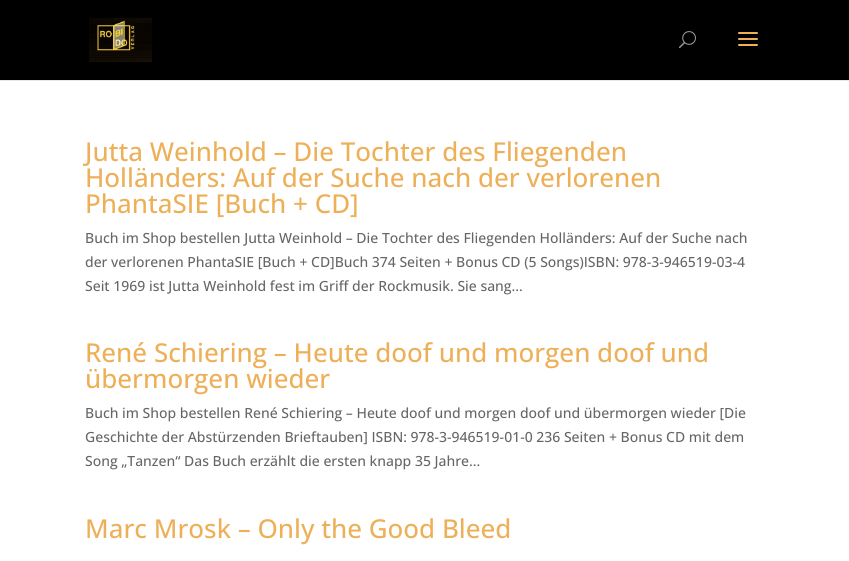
import math
import cairo


def use_color(cr, r, g, b):
  cr.set_source_rgb(r / 255, g / 255, b / 255)

def text(cr, x, y, s, family, size, color, bold=False, italic=False):
  cr.select_font_face(family, cairo.FONT_SLANT_ITALIC if italic else cairo.FONT_SLANT_NORMAL, cairo.FONT_WEIGHT_BOLD if bold else cairo.FONT_WEIGHT_NORMAL)
  cr.set_font_size(size)
  use_color(cr, *color)
  cr.move_to(x, y)
  cr.show_text(s)

def box(cr, x, y, w, h, *color):
  use_color(cr, *color)
  cr.rectangle(x, y, w, h)
  cr.fill()

def picture(cr, path, x, y, w, h):
  cr.save()
  cr.set_source_surface(cairo.ImageSurface.create_from_png(path), x, y)
  cr.rectangle(x, y, w, h)
  cr.fill()
  cr.restore()

def draw(cr):
  use_color(cr, 0, 0, 0)
  cr.paint()
  box(cr, 0, 80, 849, 1, 230, 230, 230)
  picture(cr, "img_01.png", 89, 18, 63, 44)
  picture(cr, "img_02.png", 679, 31, 17, 18)
  picture(cr, "img_03.png", 738, 32, 20, 14)
  box(cr, 0, 81, 849, 480, 255, 255, 255)
  text(cr, 85, 161, "Jutta Weinhold – Die Tochter des Fliegenden", "Open Sans Medium", 26, (237, 176, 89))
  text(cr, 85, 187, "Holländers: Auf der Suche nach der verlorenen", "Open Sans Medium", 26, (237, 176, 89))
  text(cr, 85, 213, "PhantaSIE [Buch + CD]", "Open Sans Medium", 26, (237, 176, 89))
  text(cr, 85, 243, "Buch im Shop bestellen Jutta Weinhold – Die Tochter des Fliegenden Holländers: Auf der Suche nach", "Open Sans Medium", 14, (102, 102, 102))
  text(cr, 85, 267, "der verlorenen PhantaSIE [Buch + CD]Buch 374 Seiten + Bonus CD (5 Songs)ISBN: 978-3-946519-03-4", "Open Sans Medium", 14, (102, 102, 102))
  text(cr, 85, 291, "Seit 1969 ist Jutta Weinhold fest im Griff der Rockmusik. Sie sang...", "Open Sans Medium", 14, (102, 102, 102))
  text(cr, 85, 362, "René Schiering – Heute doof und morgen doof und", "Open Sans Medium", 26, (237, 176, 89))
  text(cr, 85, 388, "übermorgen wieder", "Open Sans Medium", 26, (237, 176, 89))
  text(cr, 85, 418, "Buch im Shop bestellen René Schiering – Heute doof und morgen doof und übermorgen wieder [Die", "Open Sans Medium", 14, (102, 102, 102))
  text(cr, 85, 442, "Geschichte der Abstürzenden Brieftauben] ISBN: 978-3-946519-01-0 236 Seiten + Bonus CD mit dem", "Open Sans Medium", 14, (102, 102, 102))
  text(cr, 85, 466, "Song „Tanzen“ Das Buch erzählt die ersten knapp 35 Jahre...", "Open Sans Medium", 14, (102, 102, 102))
  text(cr, 85, 538, "Marc Mrosk – Only the Good Bleed", "Open Sans Medium", 26, (237, 176, 89))


surface = cairo.ImageSurface(cairo.FORMAT_RGB24, 849, 561)
cr = cairo.Context(surface)
options = cairo.FontOptions()
options.set_hint_metrics(cairo.HINT_METRICS_OFF)
options.set_hint_style(cairo.HINT_STYLE_NONE)
cr.set_font_options(options)
cr.set_miter_limit(4)
draw(cr)
surface.write_to_png("out.png")
